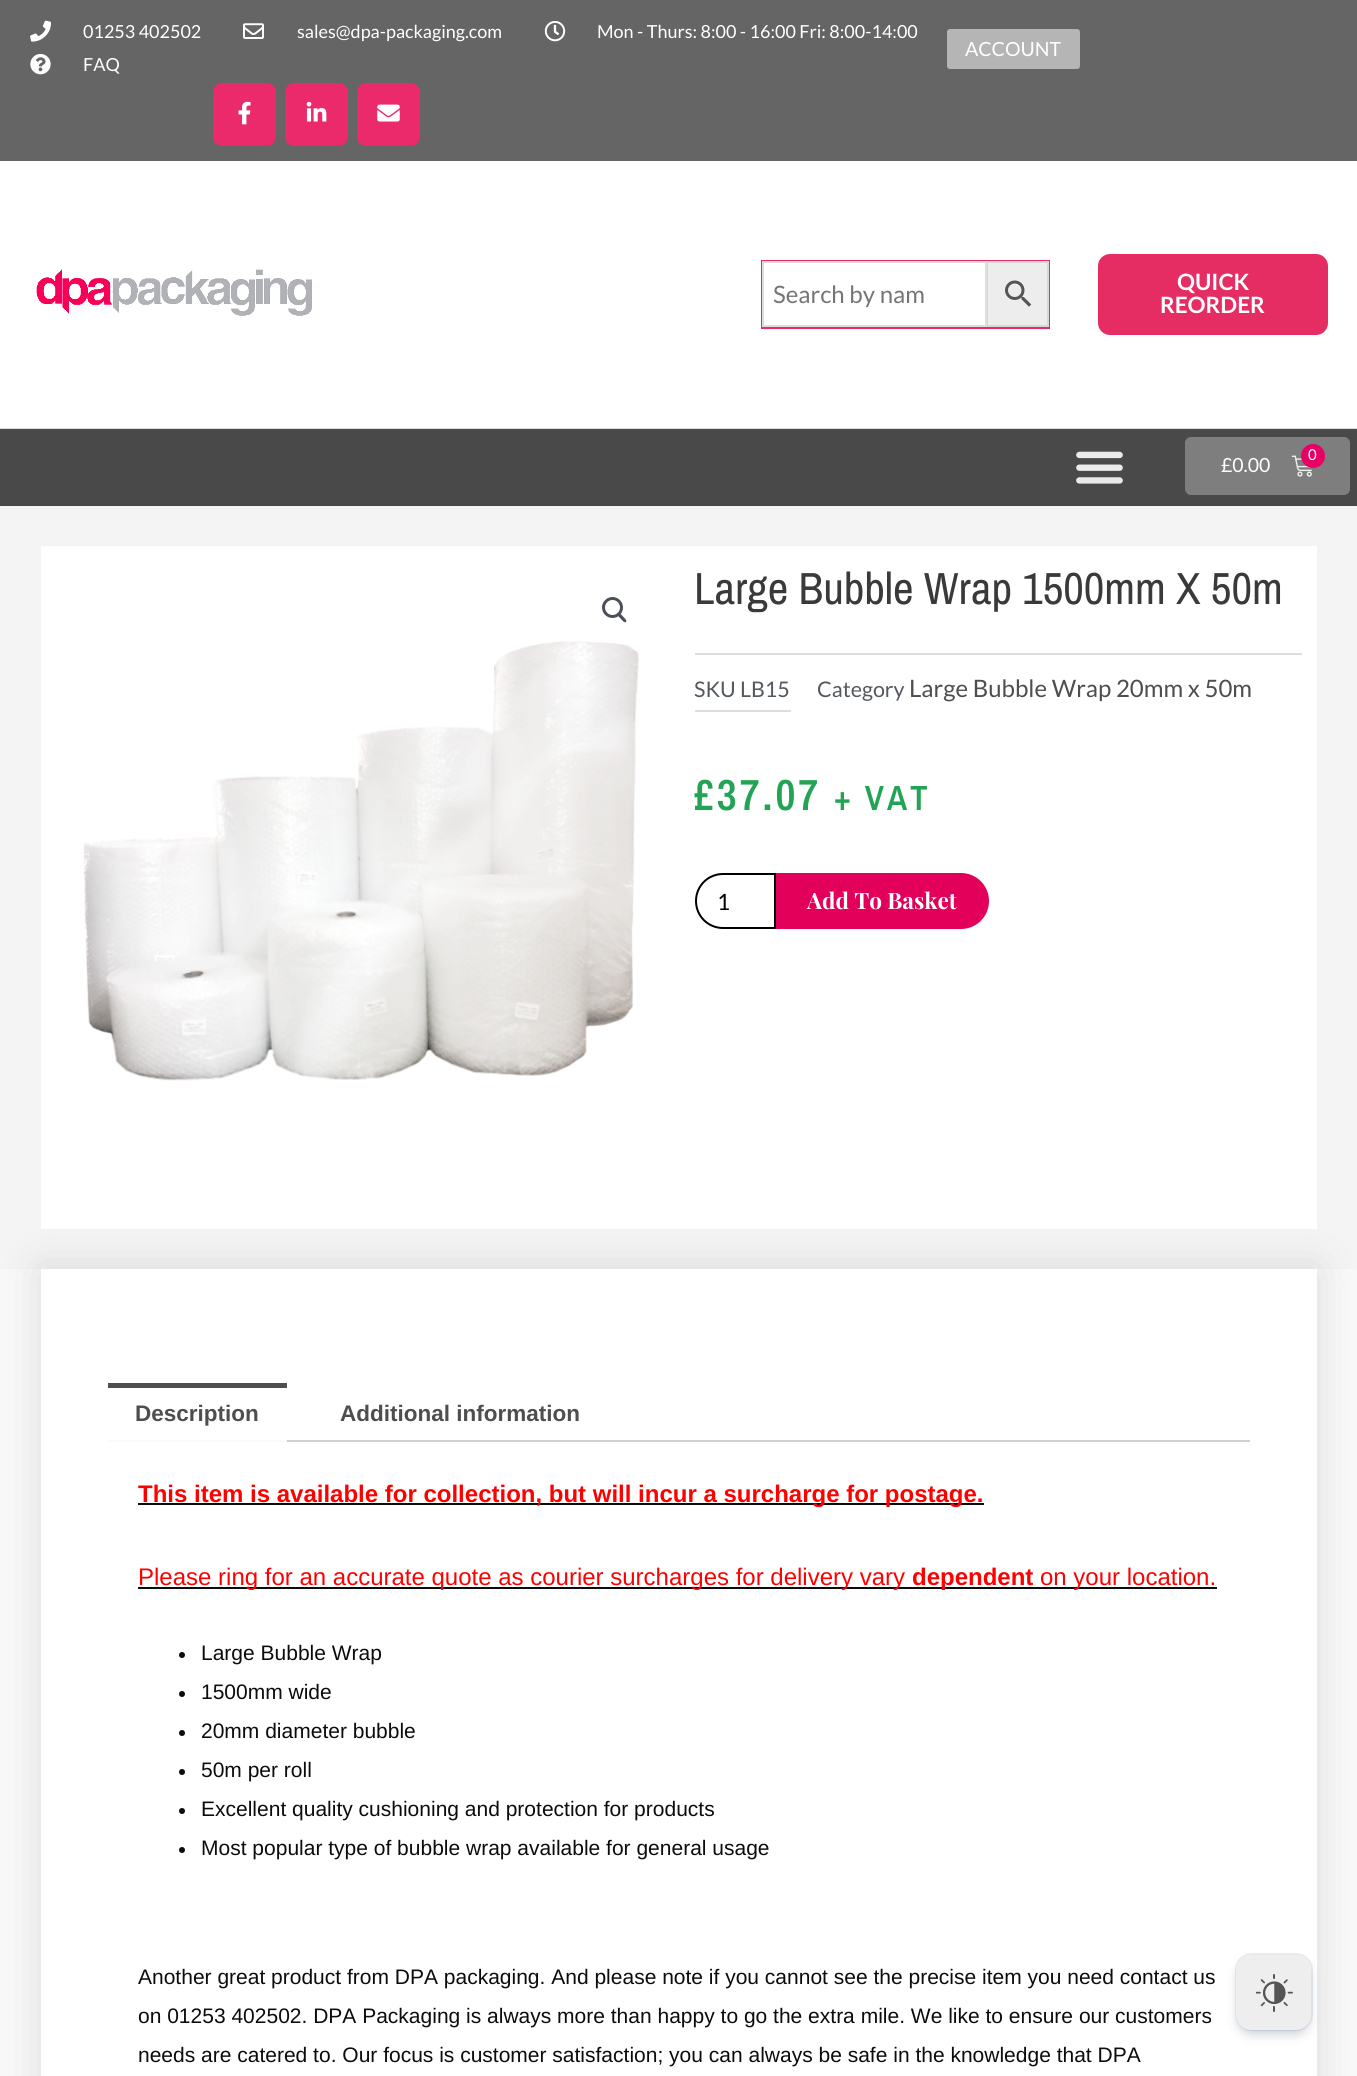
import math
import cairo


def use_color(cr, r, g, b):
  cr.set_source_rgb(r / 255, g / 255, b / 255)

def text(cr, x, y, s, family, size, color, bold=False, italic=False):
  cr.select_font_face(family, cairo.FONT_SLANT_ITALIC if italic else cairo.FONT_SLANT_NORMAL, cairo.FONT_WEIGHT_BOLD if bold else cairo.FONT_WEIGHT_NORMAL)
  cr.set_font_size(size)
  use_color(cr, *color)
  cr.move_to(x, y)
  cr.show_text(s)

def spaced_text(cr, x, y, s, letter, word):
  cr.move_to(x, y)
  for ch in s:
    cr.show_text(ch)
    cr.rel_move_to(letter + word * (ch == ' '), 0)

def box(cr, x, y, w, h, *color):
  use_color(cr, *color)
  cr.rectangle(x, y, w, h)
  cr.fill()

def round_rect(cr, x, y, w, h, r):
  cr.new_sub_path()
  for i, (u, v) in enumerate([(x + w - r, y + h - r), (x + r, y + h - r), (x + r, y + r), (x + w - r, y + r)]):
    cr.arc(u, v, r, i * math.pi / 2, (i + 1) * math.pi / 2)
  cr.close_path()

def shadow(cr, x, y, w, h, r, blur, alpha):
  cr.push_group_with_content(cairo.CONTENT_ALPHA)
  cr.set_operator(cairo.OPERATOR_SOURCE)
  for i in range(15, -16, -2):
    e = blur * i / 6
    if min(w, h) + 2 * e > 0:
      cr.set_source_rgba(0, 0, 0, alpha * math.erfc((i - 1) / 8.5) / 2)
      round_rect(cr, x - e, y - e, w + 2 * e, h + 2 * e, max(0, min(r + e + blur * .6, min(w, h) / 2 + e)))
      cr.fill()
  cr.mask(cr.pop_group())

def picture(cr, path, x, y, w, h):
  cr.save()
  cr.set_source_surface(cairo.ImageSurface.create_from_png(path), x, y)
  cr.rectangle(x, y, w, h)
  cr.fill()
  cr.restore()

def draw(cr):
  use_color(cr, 249, 249, 249)
  cr.paint()
  box(cr, 0, 0, 1357, 161, 101, 101, 101)
  picture(cr, "img_01.png", 30, 20, 21, 22)
  picture(cr, "img_02.png", 243, 23, 21, 16)
  picture(cr, "img_03.png", 544, 21, 22, 21)
  picture(cr, "img_04.png", 30, 54, 21, 21)
  use_color(cr, 181, 181, 181)
  round_rect(cr, 947, 29, 133, 40, 3)
  cr.fill()
  use_color(cr, 234, 42, 106)
  round_rect(cr, 213, 83, 63, 63, 9)
  cr.fill()
  picture(cr, "img_05.png", 238, 101, 13, 24)
  round_rect(cr, 285, 83, 63, 63, 9)
  cr.fill()
  picture(cr, "img_06.png", 306, 101, 21, 21)
  round_rect(cr, 357, 83, 63, 63, 9)
  cr.fill()
  picture(cr, "img_07.png", 377, 104, 23, 18)
  box(cr, 0, 161, 1357, 267, 255, 255, 255)
  box(cr, 0, 428, 1357, 1, 216, 216, 216)
  picture(cr, "img_08.png", 36, 269, 276, 47)
  cr.rectangle(762, 261, 287, 67)
  use_color(cr, 229, 45, 100)
  cr.stroke()
  use_color(cr, 237, 237, 237)
  cr.rectangle(987, 262, 61, 64)
  cr.fill_preserve()
  use_color(cr, 216, 216, 216)
  cr.stroke()
  cr.rectangle(763, 262, 223, 64)
  use_color(cr, 221, 221, 221)
  cr.stroke()
  picture(cr, "img_09.png", 1005, 280, 27, 27)
  use_color(cr, 229, 45, 100)
  round_rect(cr, 1098, 254, 230, 81, 12)
  cr.fill()
  box(cr, 0, 429, 1357, 77, 73, 73, 73)
  picture(cr, "img_10.png", 1076, 451, 47, 33)
  use_color(cr, 126, 126, 126)
  round_rect(cr, 1185, 437, 165, 58, 6)
  cr.fill()
  picture(cr, "img_11.png", 1291, 455, 21, 22)
  use_color(cr, 232, 0, 100)
  cr.arc(1313, 456, 12, 0, 2 * math.pi)
  cr.fill()
  box(cr, 0, 506, 1357, 763, 244, 244, 244)
  box(cr, 41, 546, 1276, 683, 255, 255, 255)
  cr.arc(612.5, 607.5, 9, 0, 2 * math.pi)
  use_color(cr, 75, 79, 88)
  cr.set_line_width(3)
  cr.stroke()
  cr.new_path()
  cr.move_to(617.5, 613.5)
  cr.curve_to(619, 611.5, 622, 615.5, 623, 616.5)
  cr.curve_to(623.5, 617.5, 627.5, 620, 626, 622)
  cr.curve_to(624.5, 623.5, 621.5, 619.5, 620.5, 618.5)
  cr.curve_to(620, 617.5, 616, 615, 617.5, 613.5)
  cr.close_path()
  cr.fill()
  picture(cr, "img_12.png", 83, 641, 556, 440)
  box(cr, 695, 653, 607, 2, 221, 221, 221)
  box(cr, 695, 710, 96, 2, 221, 221, 221)
  cr.new_path()
  cr.move_to(723, 874)
  cr.line_to(775, 874)
  cr.line_to(775, 928)
  cr.line_to(723, 928)
  cr.curve_to(708, 928, 696, 916, 696, 901)
  cr.curve_to(696, 886, 708, 874, 723, 874)
  cr.close_path()
  use_color(cr, 0, 0, 0)
  cr.set_line_width(2)
  cr.stroke()
  use_color(cr, 226, 0, 90)
  cr.new_path()
  cr.move_to(776, 873)
  cr.line_to(961, 873)
  cr.curve_to(976.5, 873, 989, 885.5, 989, 901)
  cr.curve_to(989, 916.5, 976.5, 929, 961, 929)
  cr.line_to(776, 929)
  cr.close_path()
  cr.fill()
  use_color(cr, 0, 0, 0)
  shadow(cr, 41, 1269, 1276, 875, 0, 22.5, 0.12)
  box(cr, 41, 1269, 1276, 807, 255, 255, 255)
  box(cr, 108, 1440, 1142, 2, 211, 206, 210)
  cr.set_source_rgba(1, 1, 1, 0.9)
  cr.rectangle(108, 1440, 179, 2)
  cr.fill()
  box(cr, 108, 1383, 179, 5, 78, 78, 78)
  box(cr, 138, 1503, 846, 2, 12, 12, 12)
  box(cr, 138, 1587, 1079, 2, 12, 12, 12)
  cr.arc(182, 1655, 3, 0, 2 * math.pi)
  cr.fill()
  cr.arc(182, 1694, 3, 0, 2 * math.pi)
  cr.fill()
  cr.arc(182, 1733, 3, 0, 2 * math.pi)
  cr.fill()
  cr.arc(182, 1772, 3, 0, 2 * math.pi)
  cr.fill()
  cr.arc(182, 1811, 3, 0, 2 * math.pi)
  cr.fill()
  cr.arc(182, 1850, 3, 0, 2 * math.pi)
  cr.fill()
  round_rect(cr, 1236, 1954, 76, 76, 16)
  use_color(cr, 235, 237, 240)
  cr.stroke()
  use_color(cr, 9, 30, 66)
  shadow(cr, 1239, 1964, 69, 69, 12, 6, 0.25)
  use_color(cr, 238, 238, 238)
  round_rect(cr, 1236, 1955, 75, 75, 15)
  cr.fill()
  picture(cr, "img_13.png", 1256, 1974, 37, 38)
  text(cr, 83, 38, "01253 402502", "Lato", 18, (255, 255, 255))
  text(cr, 297, 38, "sales@dpa-packaging.com", "Lato", 18, (255, 255, 255))
  text(cr, 597, 38, "Mon - Thurs: 8:00 - 16:00 Fri: 8:00-14:00", "Lato", 18, (255, 255, 255))
  text(cr, 83, 71, "FAQ", "Lato", 18, (255, 255, 255))
  text(cr, 965, 56, "ACCOUNT", "Lato", 19.5, (255, 255, 255))
  text(cr, 773, 303, "Search by nam", "Lato", 24, (117, 117, 117))
  text(cr, 1177, 290, "QUICK", "Lato", 22.5, (255, 255, 255), bold=True)
  text(cr, 1160, 313, "REORDER", "Lato", 22.5, (255, 255, 255), bold=True)
  text(cr, 1308, 460, "0", "Lato", 15, (255, 255, 255))
  text(cr, 1221, 472, "£0.00", "Lato", 19.5, (255, 255, 255))
  text(cr, 694, 604, "Large Bubble Wrap 1500mm X 50m", "Archivo Narrow", 45, (58, 58, 58))
  text(cr, 694, 697, "SKU LB15", "Lato", 21.5, (84, 89, 95))
  text(cr, 817, 697, "Category", "Lato", 21.5, (84, 89, 95))
  text(cr, 909, 697, "Large Bubble Wrap 20mm x 50m", "Lato", 24, (78, 78, 78))
  cr.select_font_face("Archivo Narrow SemiBold")
  cr.set_font_size(43.5)
  use_color(cr, 35, 164, 85)
  spaced_text(cr, 694, 810, "£37.07", 3, 0)
  cr.set_font_size(35)
  spaced_text(cr, 834, 810, "+ VAT", 3, 0)
  text(cr, 717, 910, "1", "Lato", 22.5, (0, 0, 0))
  text(cr, 807, 909, "Add To Basket", "Playfair Display", 22.5, (255, 255, 255), bold=True)
  text(cr, 135, 1421, "Description", "Liberation Sans", 22.5, (78, 78, 78), bold=True)
  text(cr, 340, 1421, "Additional information", "Liberation Sans", 22.5, (78, 78, 78), bold=True)
  text(cr, 138, 1502, "This item is available for collection, but will incur a surcharge for postage.", "Liberation Sans", 24, (255, 0, 0), bold=True)
  text(cr, 138, 1585, "Please ring for an accurate quote as courier surcharges for delivery vary", "Liberation Sans", 24, (255, 0, 0))
  text(cr, 912, 1585, "dependent", "Liberation Sans", 24, (255, 0, 0), bold=True)
  text(cr, 1040, 1585, "on your location.", "Liberation Sans", 24, (255, 0, 0))
  text(cr, 201, 1660, "Large Bubble Wrap", "Liberation Sans", 21, (12, 12, 12))
  text(cr, 201, 1699, "1500mm wide", "Liberation Sans", 21, (12, 12, 12))
  text(cr, 201, 1738, "20mm diameter bubble", "Liberation Sans", 21, (12, 12, 12))
  text(cr, 201, 1777, "50m per roll", "Liberation Sans", 21, (12, 12, 12))
  text(cr, 201, 1816, "Excellent quality cushioning and protection for products", "Liberation Sans", 21, (12, 12, 12))
  text(cr, 201, 1855, "Most popular type of bubble wrap available for general usage", "Liberation Sans", 21, (12, 12, 12))
  text(cr, 138, 1984, "Another great product from DPA packaging. And please note if you cannot see the precise item you need contact us", "Liberation Sans", 21, (12, 12, 12))
  text(cr, 138, 2023, "on 01253 402502. DPA Packaging is always more than happy to go the extra mile. We like to ensure our customers", "Liberation Sans", 21, (12, 12, 12))
  text(cr, 138, 2062, "needs are catered to. Our focus is customer satisfaction; you can always be safe in the knowledge that DPA", "Liberation Sans", 21, (12, 12, 12))


surface = cairo.ImageSurface(cairo.FORMAT_RGB24, 1357, 2076)
cr = cairo.Context(surface)
options = cairo.FontOptions()
options.set_hint_metrics(cairo.HINT_METRICS_OFF)
options.set_hint_style(cairo.HINT_STYLE_NONE)
cr.set_font_options(options)
cr.set_miter_limit(4)
draw(cr)
surface.write_to_png("out.png")
